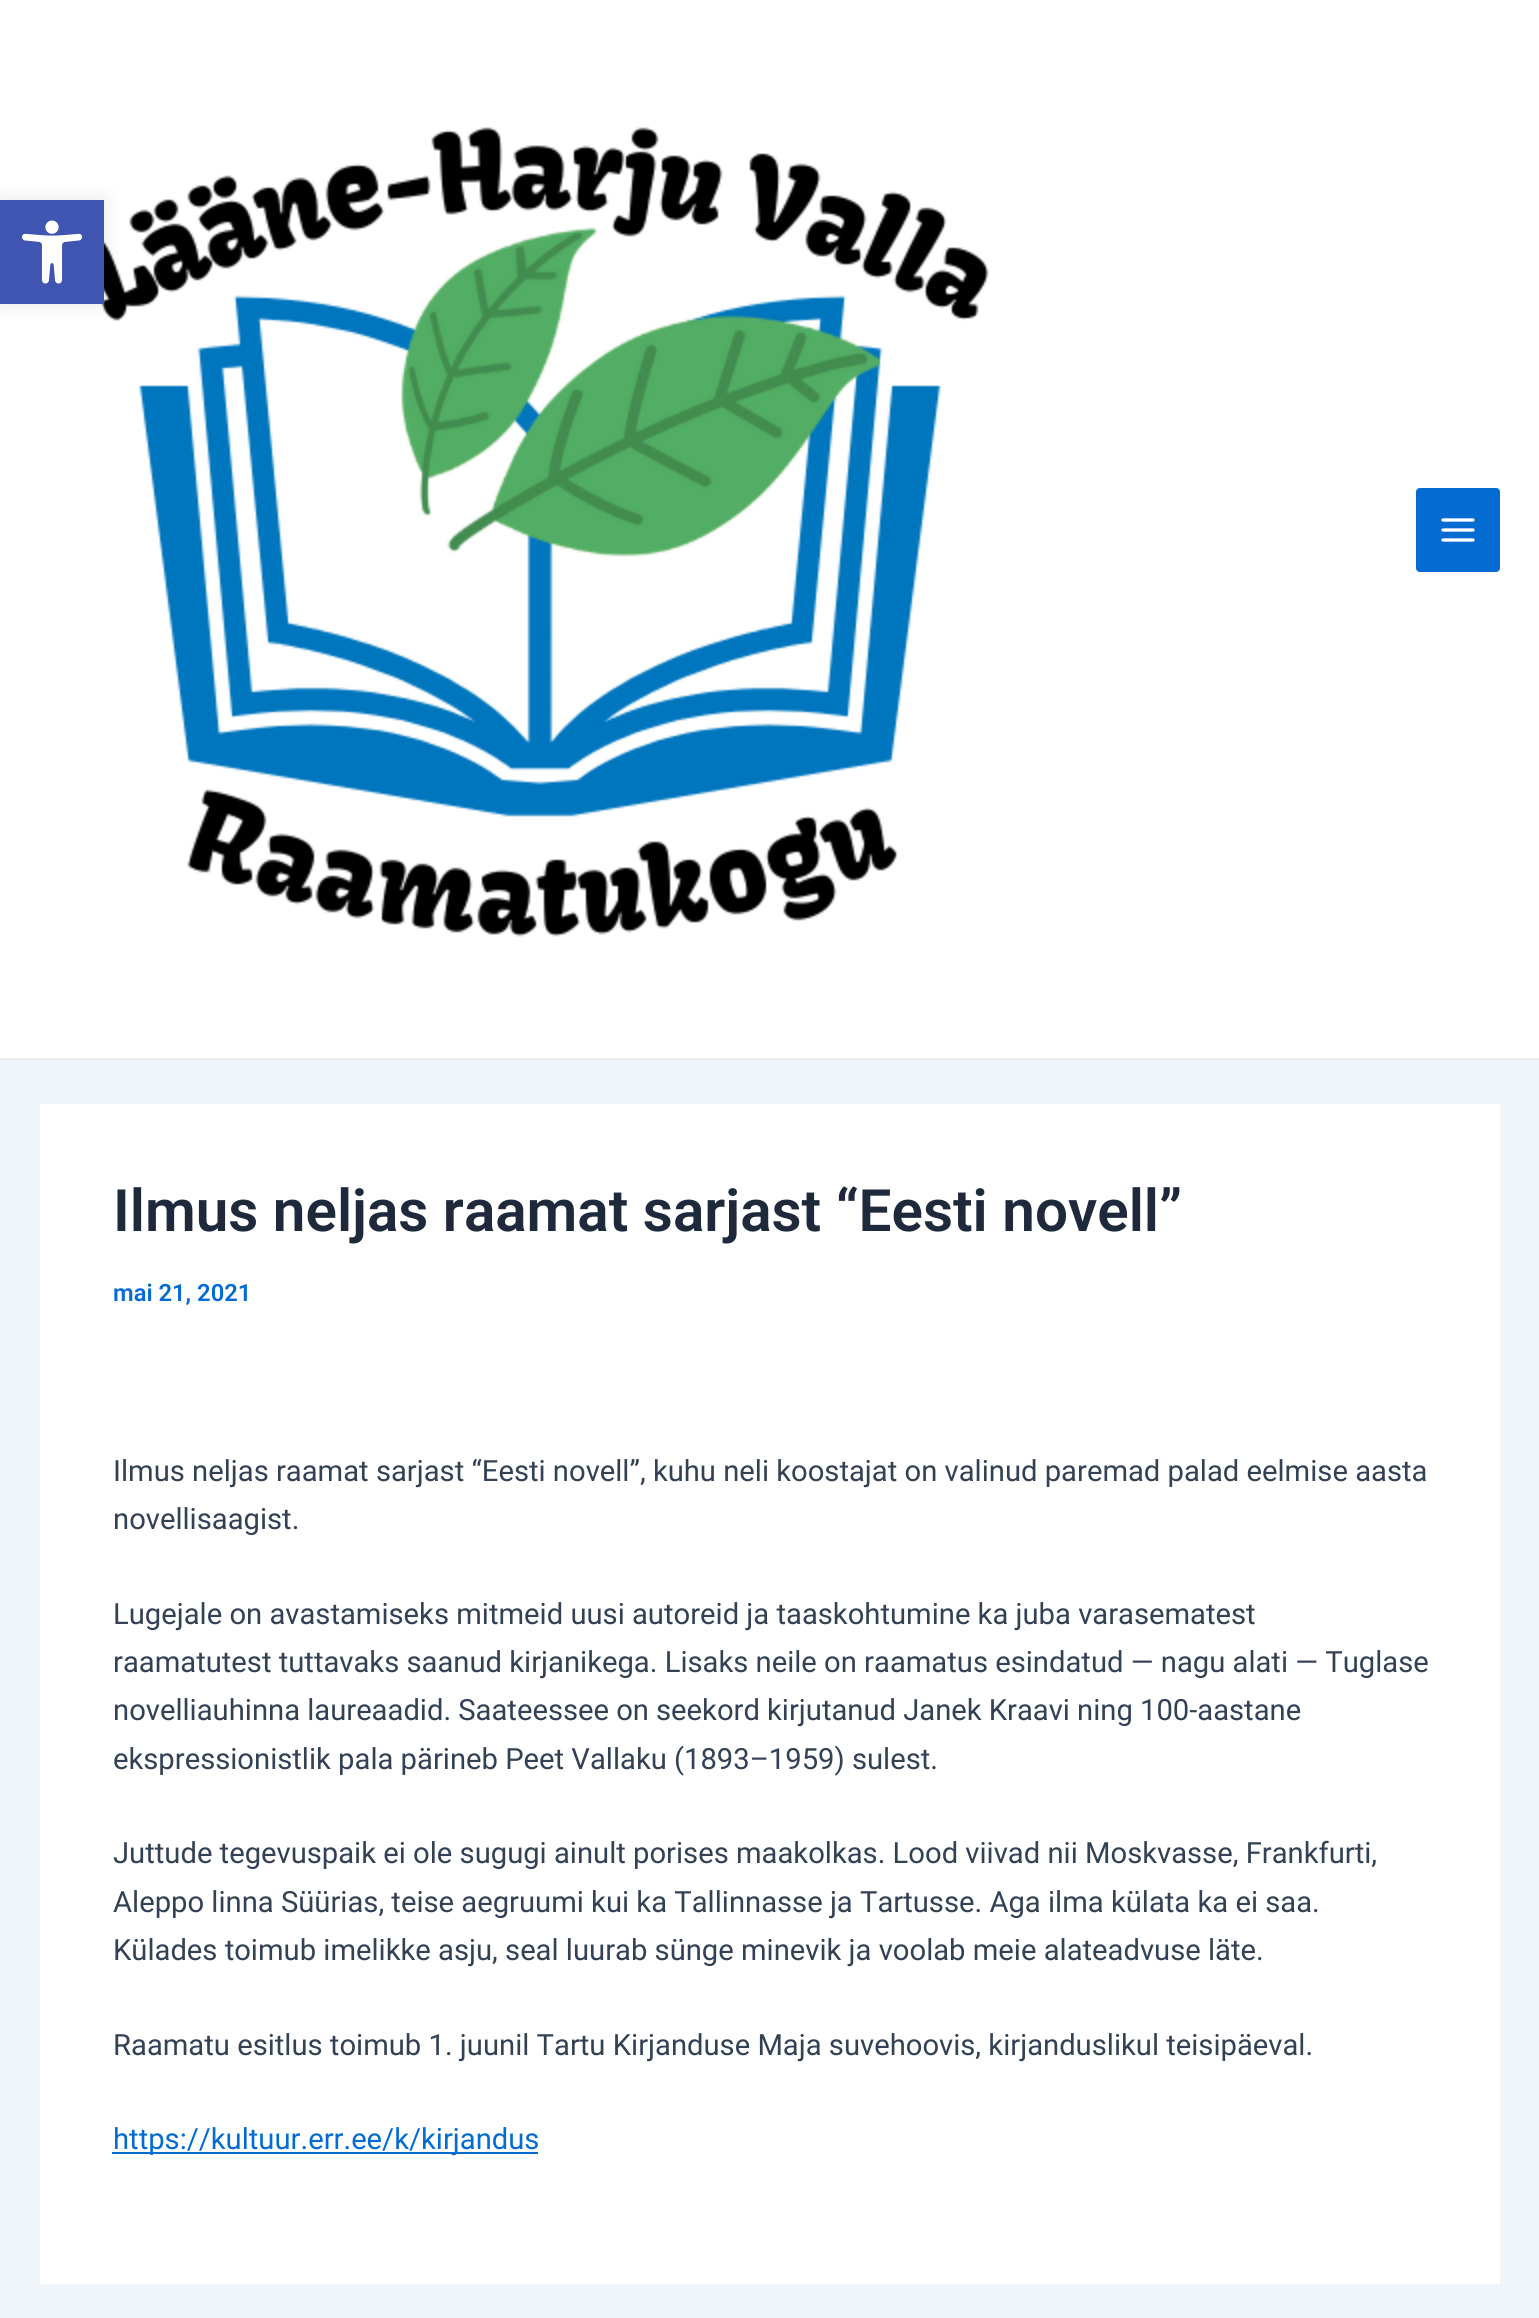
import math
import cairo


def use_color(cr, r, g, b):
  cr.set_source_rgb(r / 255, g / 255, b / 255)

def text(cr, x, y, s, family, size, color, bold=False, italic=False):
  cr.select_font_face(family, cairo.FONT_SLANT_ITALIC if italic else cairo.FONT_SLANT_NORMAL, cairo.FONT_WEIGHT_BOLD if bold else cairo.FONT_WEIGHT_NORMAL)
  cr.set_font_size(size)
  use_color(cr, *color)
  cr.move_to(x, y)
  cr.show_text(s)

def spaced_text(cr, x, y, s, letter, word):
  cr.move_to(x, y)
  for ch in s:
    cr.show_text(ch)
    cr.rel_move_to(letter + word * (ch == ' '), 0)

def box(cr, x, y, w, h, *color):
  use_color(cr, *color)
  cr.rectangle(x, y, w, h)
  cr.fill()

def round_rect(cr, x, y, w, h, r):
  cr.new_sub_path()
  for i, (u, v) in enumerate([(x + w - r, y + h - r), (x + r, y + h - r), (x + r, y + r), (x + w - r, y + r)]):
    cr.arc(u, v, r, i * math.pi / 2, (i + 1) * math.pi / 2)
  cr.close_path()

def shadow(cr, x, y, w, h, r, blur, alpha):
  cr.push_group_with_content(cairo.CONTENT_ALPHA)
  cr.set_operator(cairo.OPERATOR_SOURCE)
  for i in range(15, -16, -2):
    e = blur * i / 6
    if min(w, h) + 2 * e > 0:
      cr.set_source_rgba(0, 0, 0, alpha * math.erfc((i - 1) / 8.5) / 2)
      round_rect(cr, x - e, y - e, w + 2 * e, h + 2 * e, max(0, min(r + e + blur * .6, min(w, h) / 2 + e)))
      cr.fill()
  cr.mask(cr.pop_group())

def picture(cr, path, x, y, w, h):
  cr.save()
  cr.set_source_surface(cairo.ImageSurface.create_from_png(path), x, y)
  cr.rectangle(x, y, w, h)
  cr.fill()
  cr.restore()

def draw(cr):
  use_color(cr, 240, 245, 250)
  cr.paint()
  box(cr, 0, 0, 1539, 1058, 255, 255, 255)
  picture(cr, "img_02.png", 73, 127, 916, 810)
  use_color(cr, 0, 0, 0)
  shadow(cr, 0, 200, 104, 104, 0, 10, 0.1)
  box(cr, 0, 200, 104, 104, 64, 84, 178)
  picture(cr, "img_01.png", 22, 220, 61, 64)
  box(cr, 0, 1058, 1539, 2, 234, 234, 234)
  use_color(cr, 4, 107, 210)
  round_rect(cr, 1416, 488, 84, 84, 4)
  cr.fill()
  picture(cr, "img_03.png", 1441, 518, 34, 24)
  box(cr, 40, 1104, 1460, 1180, 255, 255, 255)
  box(cr, 112, 2152, 426, 2, 4, 107, 210)
  text(cr, 113, 1231, "Ilmus neljas raamat sarjast “Eesti novell”", "Roboto SemiBold", 58.4, (30, 41, 59))
  text(cr, 113, 1301, "mai 21, 2021", "Roboto SemiBold", 23.75, (4, 107, 210))
  text(cr, 113, 1481, "Ilmus neljas raamat sarjast “Eesti novell”, kuhu neli koostajat on valinud paremad palad eelmise aasta", "Roboto", 29.2, (51, 65, 85))
  text(cr, 113, 1529, "novellisaagist.", "Roboto", 29.2, (51, 65, 85))
  text(cr, 113, 1624, "Lugejale on avastamiseks mitmeid uusi autoreid ja taaskohtumine ka juba varasematest", "Roboto", 29.2, (51, 65, 85))
  text(cr, 113, 1672, "raamatutest tuttavaks saanud kirjanikega. Lisaks neile on raamatus esindatud — nagu alati — Tuglase", "Roboto", 29.2, (51, 65, 85))
  spaced_text(cr, 113, 1720, "novelliauhinna laureaadid. Saateessee on seekord kirjutanud Janek Kraavi ning 100-aastane", 0, -0.1)
  text(cr, 113, 1769, "ekspressionistlik pala pärineb Peet Vallaku (1893–1959) sulest.", "Roboto", 29.2, (51, 65, 85))
  text(cr, 113, 1863, "Juttude tegevuspaik ei ole sugugi ainult porises maakolkas. Lood viivad nii Moskvasse, Frankfurti,", "Roboto", 29.2, (51, 65, 85))
  text(cr, 113, 1912, "Aleppo linna Süürias, teise aegruumi kui ka Tallinnasse ja Tartusse. Aga ilma külata ka ei saa.", "Roboto", 29.2, (51, 65, 85))
  text(cr, 113, 1960, "Külades toimub imelikke asju, seal luurab sünge minevik ja voolab meie alateadvuse läte.", "Roboto", 29.2, (51, 65, 85))
  text(cr, 113, 2055, "Raamatu esitlus toimub 1. juunil Tartu Kirjanduse Maja suvehoovis, kirjanduslikul teisipäeval.", "Roboto", 29.2, (51, 65, 85))
  text(cr, 113, 2149, "https://kultuur.err.ee/k/kirjandus", "Roboto", 29.2, (4, 107, 210))


surface = cairo.ImageSurface(cairo.FORMAT_RGB24, 1539, 2318)
cr = cairo.Context(surface)
options = cairo.FontOptions()
options.set_hint_metrics(cairo.HINT_METRICS_OFF)
options.set_hint_style(cairo.HINT_STYLE_NONE)
cr.set_font_options(options)
cr.set_miter_limit(4)
draw(cr)
surface.write_to_png("out.png")
